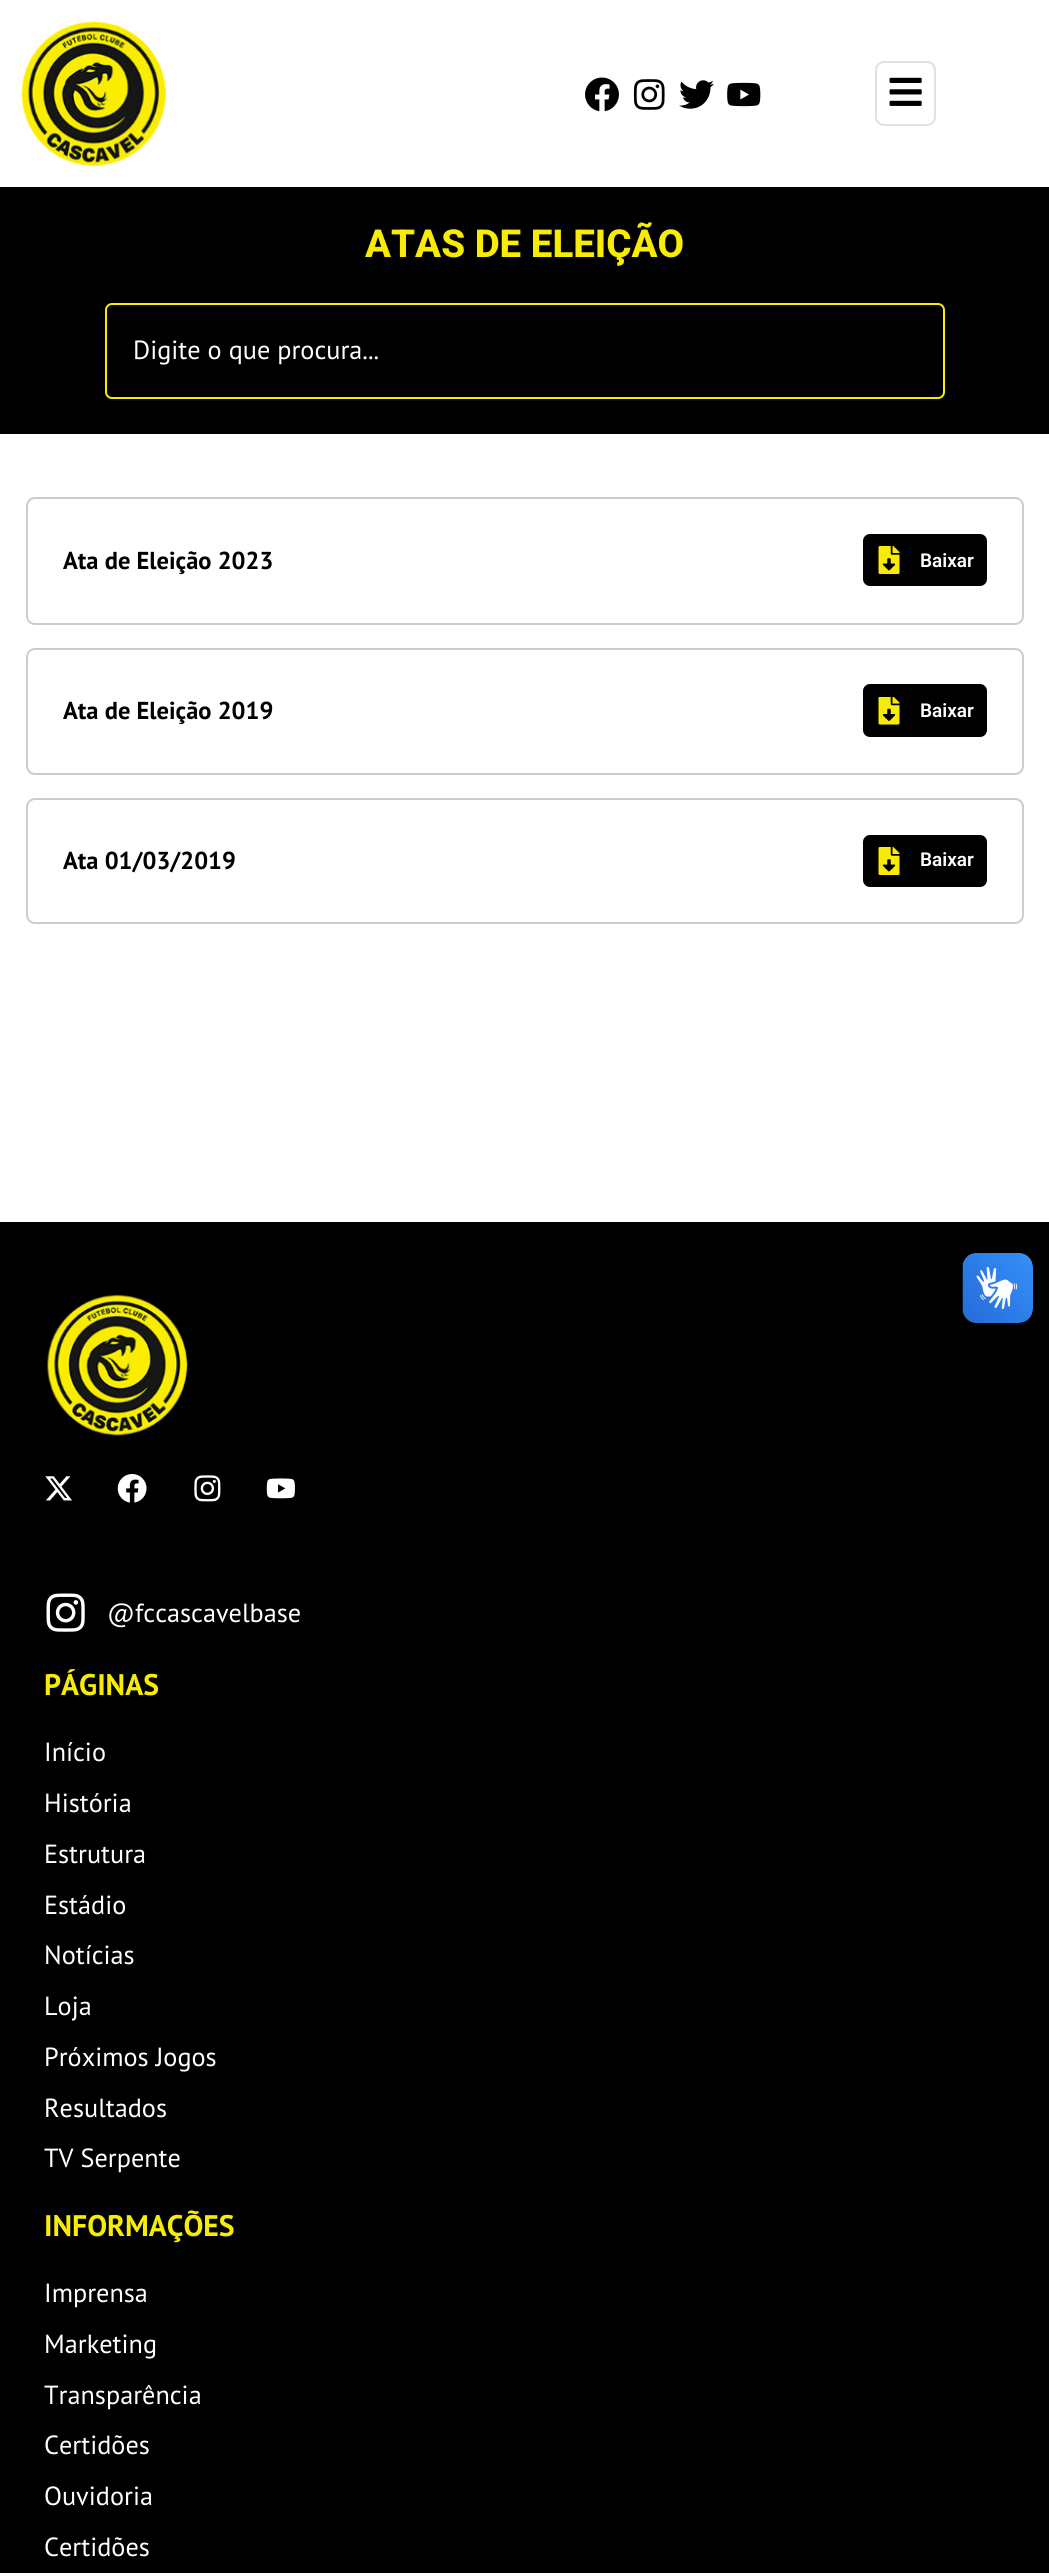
import math
import cairo


def use_color(cr, r, g, b):
  cr.set_source_rgb(r / 255, g / 255, b / 255)

def text(cr, x, y, s, family, size, color, bold=False, italic=False):
  cr.select_font_face(family, cairo.FONT_SLANT_ITALIC if italic else cairo.FONT_SLANT_NORMAL, cairo.FONT_WEIGHT_BOLD if bold else cairo.FONT_WEIGHT_NORMAL)
  cr.set_font_size(size)
  use_color(cr, *color)
  cr.move_to(x, y)
  cr.show_text(s)

def box(cr, x, y, w, h, *color):
  use_color(cr, *color)
  cr.rectangle(x, y, w, h)
  cr.fill()

def round_rect(cr, x, y, w, h, r):
  cr.new_sub_path()
  for i, (u, v) in enumerate([(x + w - r, y + h - r), (x + r, y + h - r), (x + r, y + r), (x + w - r, y + r)]):
    cr.arc(u, v, r, i * math.pi / 2, (i + 1) * math.pi / 2)
  cr.close_path()

def picture(cr, path, x, y, w, h):
  cr.save()
  cr.set_source_surface(cairo.ImageSurface.create_from_png(path), x, y)
  cr.rectangle(x, y, w, h)
  cr.fill()
  cr.restore()

def draw(cr):
  use_color(cr, 255, 255, 255)
  cr.paint()
  picture(cr, "img_01.png", 21, 21, 146, 146)
  picture(cr, "img_02.png", 585, 77, 34, 35)
  picture(cr, "img_03.png", 633, 79, 32, 31)
  picture(cr, "img_04.png", 679, 80, 35, 29)
  picture(cr, "img_05.png", 727, 82, 34, 25)
  round_rect(cr, 876, 62, 59, 63, 8)
  use_color(cr, 225, 225, 225)
  cr.stroke()
  picture(cr, "img_06.png", 889, 77, 33, 29)
  box(cr, 0, 187, 1049, 247, 0, 0, 0)
  round_rect(cr, 106, 304, 838, 94, 6)
  use_color(cr, 247, 236, 2)
  cr.stroke()
  round_rect(cr, 27, 498, 996, 126, 8)
  use_color(cr, 204, 204, 204)
  cr.stroke()
  use_color(cr, 0, 0, 0)
  round_rect(cr, 863, 534, 124, 52, 7)
  cr.fill()
  picture(cr, "img_07.png", 878, 546, 22, 28)
  round_rect(cr, 27, 649, 996, 125, 8)
  use_color(cr, 204, 204, 204)
  cr.stroke()
  use_color(cr, 0, 0, 0)
  round_rect(cr, 863, 684, 124, 53, 7)
  cr.fill()
  picture(cr, "img_08.png", 878, 697, 22, 28)
  round_rect(cr, 27, 799, 996, 124, 8)
  use_color(cr, 204, 204, 204)
  cr.stroke()
  use_color(cr, 0, 0, 0)
  round_rect(cr, 863, 835, 124, 52, 7)
  cr.fill()
  picture(cr, "img_07.png", 878, 847, 22, 28)
  box(cr, 0, 1222, 1049, 1351, 0, 0, 0)
  picture(cr, "img_09.png", 962, 1253, 71, 70)
  picture(cr, "img_10.png", 963, 1253, 70, 70)
  picture(cr, "img_11.png", 46, 1294, 142, 142)
  picture(cr, "img_12.png", 45, 1476, 27, 25)
  picture(cr, "img_13.png", 117, 1474, 30, 29)
  picture(cr, "img_14.png", 194, 1475, 27, 27)
  picture(cr, "img_15.png", 266, 1478, 29, 21)
  picture(cr, "img_16.png", 46, 1593, 39, 39)
  text(cr, 365, 257, "ATAS DE ELEIÇÃO", "Roboto ExtraBold", 38.5, (247, 236, 2))
  text(cr, 133, 359, "Digite o que procura...", "PT Sans", 26.25, (255, 255, 255))
  text(cr, 63, 569, "Ata de Eleição 2023", "PT Sans", 24.5, (0, 0, 0), bold=True)
  text(cr, 920, 567, "Baixar", "Roboto SemiBold", 19, (255, 255, 255))
  text(cr, 63, 719, "Ata de Eleição 2019", "PT Sans", 24.5, (0, 0, 0), bold=True)
  text(cr, 920, 717, "Baixar", "Roboto SemiBold", 19, (255, 255, 255))
  text(cr, 63, 869, "Ata 01/03/2019", "PT Sans", 24.5, (0, 0, 0), bold=True)
  text(cr, 920, 866, "Baixar", "Roboto SemiBold", 19, (255, 255, 255))
  text(cr, 107, 1622, "@fccascavelbase", "PT Sans", 26.25, (255, 255, 255))
  text(cr, 44, 1695, "PÁGINAS", "PT Sans", 29.75, (247, 236, 2), bold=True)
  text(cr, 44, 1761, "Início", "PT Sans", 26.25, (255, 255, 255))
  text(cr, 44, 1812, "História", "PT Sans", 26.25, (255, 255, 255))
  text(cr, 44, 1863, "Estrutura", "PT Sans", 26.25, (255, 255, 255))
  text(cr, 44, 1914, "Estádio", "PT Sans", 26.25, (255, 255, 255))
  text(cr, 44, 1964, "Notícias", "PT Sans", 26.25, (255, 255, 255))
  text(cr, 44, 2015, "Loja", "PT Sans", 26.25, (255, 255, 255))
  text(cr, 44, 2066, "Próximos Jogos", "PT Sans", 26.25, (255, 255, 255))
  text(cr, 44, 2117, "Resultados", "PT Sans", 26.25, (255, 255, 255))
  text(cr, 44, 2167, "TV Serpente", "PT Sans", 26.25, (255, 255, 255))
  text(cr, 44, 2236, "INFORMAÇÕES", "PT Sans", 29.75, (247, 236, 2), bold=True)
  text(cr, 44, 2302, "Imprensa", "PT Sans", 26.25, (255, 255, 255))
  text(cr, 44, 2353, "Marketing", "PT Sans", 26.25, (255, 255, 255))
  text(cr, 44, 2404, "Transparência", "PT Sans", 26.25, (255, 255, 255))
  text(cr, 44, 2454, "Certidões", "PT Sans", 26.25, (255, 255, 255))
  text(cr, 44, 2505, "Ouvidoria", "PT Sans", 26.25, (255, 255, 255))
  text(cr, 44, 2556, "Certidões", "PT Sans", 26.25, (255, 255, 255))


surface = cairo.ImageSurface(cairo.FORMAT_RGB24, 1049, 2573)
cr = cairo.Context(surface)
options = cairo.FontOptions()
options.set_hint_metrics(cairo.HINT_METRICS_OFF)
options.set_hint_style(cairo.HINT_STYLE_NONE)
cr.set_font_options(options)
cr.set_miter_limit(4)
draw(cr)
surface.write_to_png("out.png")
